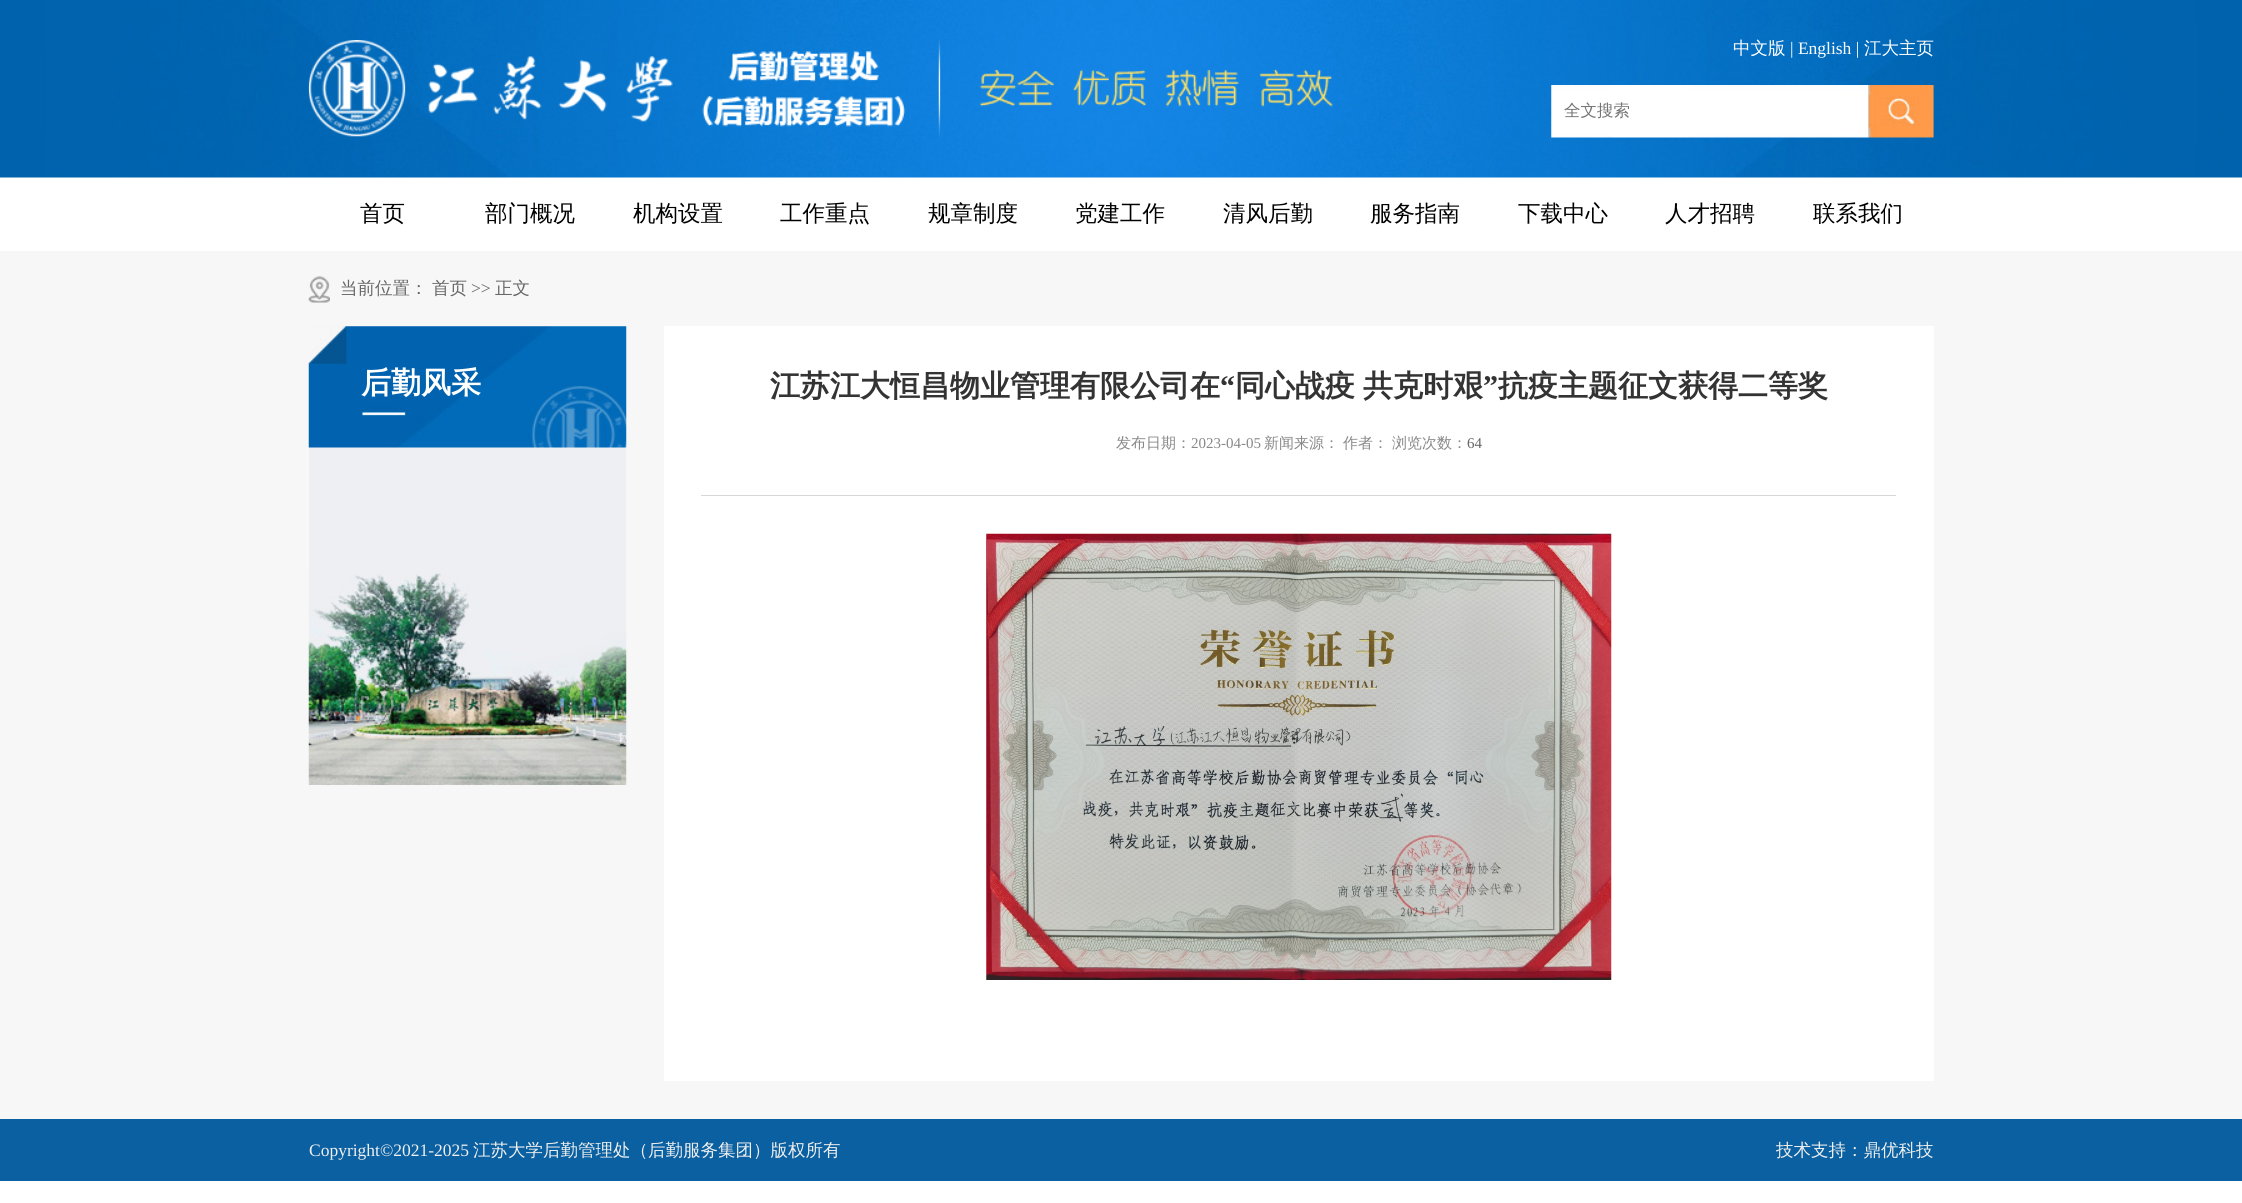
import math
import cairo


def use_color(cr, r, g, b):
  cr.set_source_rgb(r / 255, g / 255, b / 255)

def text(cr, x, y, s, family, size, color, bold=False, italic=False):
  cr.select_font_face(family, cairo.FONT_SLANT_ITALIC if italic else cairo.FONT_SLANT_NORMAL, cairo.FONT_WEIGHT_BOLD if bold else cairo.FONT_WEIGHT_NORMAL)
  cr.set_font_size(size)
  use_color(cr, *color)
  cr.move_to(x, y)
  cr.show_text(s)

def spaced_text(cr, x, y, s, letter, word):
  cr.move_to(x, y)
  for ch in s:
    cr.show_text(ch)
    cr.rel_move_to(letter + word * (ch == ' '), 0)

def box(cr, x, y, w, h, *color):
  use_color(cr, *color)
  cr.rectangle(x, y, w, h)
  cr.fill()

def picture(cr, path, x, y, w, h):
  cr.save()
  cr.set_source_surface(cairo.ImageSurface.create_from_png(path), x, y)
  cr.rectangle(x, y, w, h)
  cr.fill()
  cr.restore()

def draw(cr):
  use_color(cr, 255, 255, 255)
  cr.paint()
  picture(cr, "img_01.png", 0, 0, 2242, 178)
  picture(cr, "img_02.png", 308, 40, 1025, 97)
  picture(cr, "img_03.png", 1551, 85, 318, 53)
  picture(cr, "img_04.png", 1868, 85, 66, 53)
  box(cr, 0, 251, 2242, 868, 247, 247, 247)
  picture(cr, "img_05.png", 308, 276, 22, 27)
  box(cr, 309, 326, 317, 247, 238, 239, 242)
  picture(cr, "img_06.png", 308, 573, 319, 212)
  picture(cr, "img_07.png", 308, 326, 319, 122)
  box(cr, 664, 326, 1270, 755, 255, 255, 255)
  box(cr, 701, 495, 1195, 1, 215, 215, 215)
  picture(cr, "img_08.png", 986, 533, 626, 447)
  box(cr, 0, 1119, 2242, 62, 10, 96, 161)
  text(cr, 1564, 116, "全文搜索", "WenQuanYi Zen Hei Medium", 16.5, (117, 117, 117))
  text(cr, 1733, 54, "中文版", "WenQuanYi Zen Hei Medium", 17.5, (255, 255, 255))
  text(cr, 1790, 54, "| English |", "Liberation Serif", 17.5, (255, 255, 255))
  text(cr, 1864, 54, "江大主页", "WenQuanYi Zen Hei Medium", 17.5, (255, 255, 255))
  text(cr, 360, 221, "首页", "WenQuanYi Zen Hei Medium", 22.5, (0, 0, 0))
  text(cr, 485, 221, "部门概况", "WenQuanYi Zen Hei Medium", 22.5, (0, 0, 0))
  text(cr, 633, 221, "机构设置", "WenQuanYi Zen Hei Medium", 22.5, (0, 0, 0))
  text(cr, 780, 221, "工作重点", "WenQuanYi Zen Hei Medium", 22.5, (0, 0, 0))
  text(cr, 928, 221, "规章制度", "WenQuanYi Zen Hei Medium", 22.5, (0, 0, 0))
  text(cr, 1075, 221, "党建工作", "WenQuanYi Zen Hei Medium", 22.5, (0, 0, 0))
  text(cr, 1223, 221, "清风后勤", "WenQuanYi Zen Hei Medium", 22.5, (0, 0, 0))
  text(cr, 1370, 221, "服务指南", "WenQuanYi Zen Hei Medium", 22.5, (0, 0, 0))
  text(cr, 1518, 221, "下载中心", "WenQuanYi Zen Hei Medium", 22.5, (0, 0, 0))
  text(cr, 1665, 221, "人才招聘", "WenQuanYi Zen Hei Medium", 22.5, (0, 0, 0))
  text(cr, 1813, 221, "联系我们", "WenQuanYi Zen Hei Medium", 22.5, (0, 0, 0))
  text(cr, 340, 294, "当前位置：", "WenQuanYi Zen Hei Medium", 17.5, (102, 102, 102))
  text(cr, 432, 294, "首页", "WenQuanYi Zen Hei Medium", 17.5, (102, 102, 102))
  text(cr, 471, 294, ">>", "Liberation Serif", 17.5, (102, 102, 102))
  text(cr, 495, 294, "正文", "WenQuanYi Zen Hei Medium", 17.5, (102, 102, 102))
  text(cr, 361, 393, "后勤风采", "WenQuanYi Zen Hei", 30, (255, 255, 255), bold=True)
  text(cr, 770, 396, "江苏江大恒昌物业管理有限公司在", "WenQuanYi Zen Hei", 30, (51, 51, 51), bold=True)
  text(cr, 1220, 396, "“", "Liberation Serif", 30, (51, 51, 51), bold=True)
  cr.select_font_face("WenQuanYi Zen Hei", cairo.FONT_SLANT_NORMAL, cairo.FONT_WEIGHT_BOLD)
  spaced_text(cr, 1235, 396, "同心战疫 共克时艰", 0, -1)
  text(cr, 1483, 396, "”", "Liberation Serif", 30, (51, 51, 51), bold=True)
  text(cr, 1498, 396, "抗疫主题征文获得二等奖", "WenQuanYi Zen Hei", 30, (51, 51, 51), bold=True)
  text(cr, 1116, 448, "发布日期：", "WenQuanYi Zen Hei Medium", 15, (136, 136, 136))
  text(cr, 1191, 448, "2023-04-05", "Liberation Serif", 15, (136, 136, 136))
  text(cr, 1264, 448, "新闻来源：", "WenQuanYi Zen Hei Medium", 15, (136, 136, 136))
  text(cr, 1343, 448, "作者：", "WenQuanYi Zen Hei Medium", 15, (136, 136, 136))
  text(cr, 1392, 448, "浏览次数：", "WenQuanYi Zen Hei Medium", 15, (136, 136, 136))
  text(cr, 1467, 448, "64", "Liberation Serif", 15, (102, 102, 102))
  text(cr, 309, 1156, "Copyright©2021-2025", "Liberation Serif", 17.5, (239, 239, 239))
  text(cr, 473, 1156, "江苏大学后勤管理处（后勤服务集团）版权所有", "WenQuanYi Zen Hei Medium", 17.5, (239, 239, 239))
  text(cr, 1776, 1156, "技术支持：鼎优科技", "WenQuanYi Zen Hei Medium", 17.5, (239, 239, 239))


surface = cairo.ImageSurface(cairo.FORMAT_RGB24, 2242, 1203)
cr = cairo.Context(surface)
options = cairo.FontOptions()
options.set_hint_metrics(cairo.HINT_METRICS_OFF)
options.set_hint_style(cairo.HINT_STYLE_NONE)
cr.set_font_options(options)
cr.set_miter_limit(4)
draw(cr)
surface.write_to_png("out.png")
